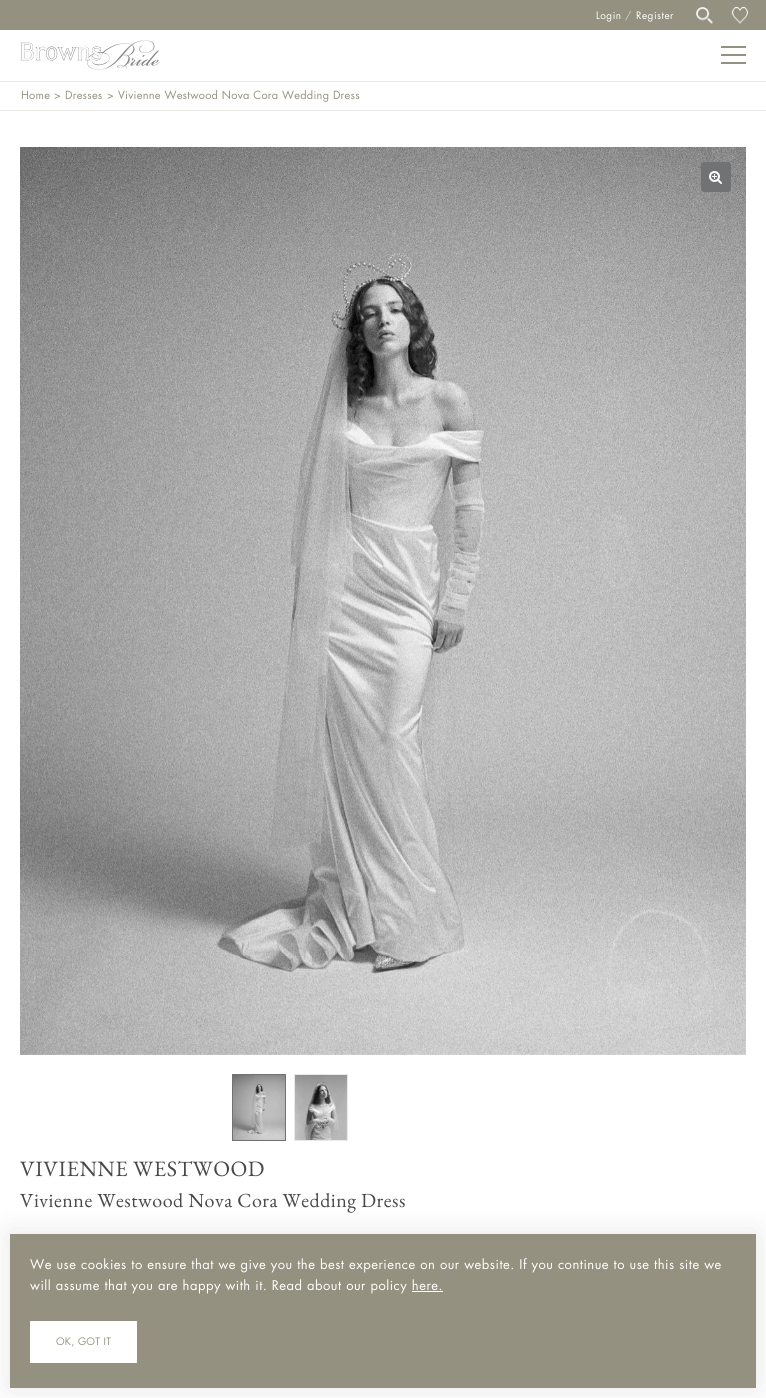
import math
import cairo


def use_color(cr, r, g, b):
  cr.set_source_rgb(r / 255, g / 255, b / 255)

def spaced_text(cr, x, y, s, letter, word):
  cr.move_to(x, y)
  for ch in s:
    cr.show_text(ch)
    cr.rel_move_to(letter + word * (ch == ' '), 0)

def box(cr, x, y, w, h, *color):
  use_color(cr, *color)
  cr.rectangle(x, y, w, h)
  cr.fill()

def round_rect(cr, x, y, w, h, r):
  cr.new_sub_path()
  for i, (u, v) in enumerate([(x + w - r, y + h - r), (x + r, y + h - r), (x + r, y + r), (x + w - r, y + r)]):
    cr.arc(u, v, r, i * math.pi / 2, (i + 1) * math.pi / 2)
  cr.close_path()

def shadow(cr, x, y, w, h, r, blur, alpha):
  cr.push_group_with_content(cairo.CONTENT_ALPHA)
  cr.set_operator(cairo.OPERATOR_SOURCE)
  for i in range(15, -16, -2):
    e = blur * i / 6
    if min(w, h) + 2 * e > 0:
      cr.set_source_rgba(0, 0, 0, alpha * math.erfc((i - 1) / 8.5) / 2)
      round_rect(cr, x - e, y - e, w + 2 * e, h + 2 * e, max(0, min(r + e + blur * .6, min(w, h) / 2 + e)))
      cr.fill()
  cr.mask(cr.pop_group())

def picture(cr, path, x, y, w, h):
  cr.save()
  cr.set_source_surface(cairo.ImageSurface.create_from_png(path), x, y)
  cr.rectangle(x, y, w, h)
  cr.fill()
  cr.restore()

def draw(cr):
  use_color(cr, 255, 255, 255)
  cr.paint()
  box(cr, 0, 0, 766, 30, 149, 145, 128)
  picture(cr, "img_01.png", 696, 7, 17, 17)
  picture(cr, "img_02.png", 731, 7, 17, 17)
  picture(cr, "img_03.png", 20, 40, 140, 30)
  box(cr, 721, 54, 25, 2, 149, 145, 128)
  box(cr, 721, 46, 25, 2, 149, 145, 128)
  box(cr, 721, 62, 25, 2, 149, 145, 128)
  box(cr, 0, 81, 766, 1, 234, 233, 230)
  box(cr, 0, 110, 766, 1, 234, 233, 230)
  picture(cr, "img_04.png", 20, 147, 726, 908)
  use_color(cr, 113, 114, 116)
  round_rect(cr, 701, 162, 30, 30, 3)
  cr.fill()
  picture(cr, "img_05.png", 709, 171, 13, 13)
  picture(cr, "img_06.png", 233, 1075, 52, 65)
  cr.rectangle(232.5, 1074.5, 53, 66)
  cr.set_line_width(1)
  cr.stroke()
  picture(cr, "img_07.png", 295, 1075, 52, 65)
  cr.rectangle(294.5, 1074.5, 53, 66)
  use_color(cr, 232, 232, 232)
  cr.stroke()
  use_color(cr, 0, 0, 0)
  shadow(cr, 10, 1234, 746, 154, 0, 15, 0.1)
  box(cr, 10, 1234, 746, 154, 149, 145, 128)
  box(cr, 412, 1291, 31, 1, 255, 255, 255)
  box(cr, 30, 1321, 107, 42, 255, 255, 255)
  cr.select_font_face("Futura")
  cr.set_font_size(10)
  spaced_text(cr, 596, 19, "Login", 0.5, 0)
  cr.select_font_face("Futura Light")
  spaced_text(cr, 625, 19, "/", 0.5, 0)
  cr.select_font_face("Futura")
  spaced_text(cr, 636, 19, "Register", 0.5, 0)
  cr.set_font_size(11)
  use_color(cr, 149, 145, 128)
  spaced_text(cr, 21, 99, "Home", 0.25, 0)
  spaced_text(cr, 54, 99, ">", 0.25, 0)
  spaced_text(cr, 65, 99, "Dresses", 0.25, 0)
  spaced_text(cr, 107, 99, ">", 0.25, 0)
  spaced_text(cr, 118, 99, "Vivienne Westwood Nova Cora Wedding Dress", 0.25, 0)
  cr.select_font_face("EB Garamond")
  cr.set_font_size(22)
  use_color(cr, 72, 72, 72)
  spaced_text(cr, 20, 1176, "VIVIENNE WESTWOOD", 0.5, 0)
  cr.set_font_size(20)
  spaced_text(cr, 20, 1207, "Vivienne Westwood Nova Cora Wedding Dress", 0.5, 0)
  cr.select_font_face("Futura")
  cr.set_font_size(13)
  use_color(cr, 255, 255, 255)
  spaced_text(cr, 30, 1269, "We use cookies to ensure that we give you the best experience on our website. If you continue to use this site we", 0.5, 0)
  spaced_text(cr, 30, 1290, "will assume that you are happy with it. Read about our policy here.", 0.5, 0)
  cr.set_font_size(10)
  use_color(cr, 149, 145, 128)
  spaced_text(cr, 56, 1345, "OK, GOT IT", 0.25, 0)


surface = cairo.ImageSurface(cairo.FORMAT_RGB24, 766, 1398)
cr = cairo.Context(surface)
options = cairo.FontOptions()
options.set_hint_metrics(cairo.HINT_METRICS_OFF)
options.set_hint_style(cairo.HINT_STYLE_NONE)
cr.set_font_options(options)
cr.set_miter_limit(4)
draw(cr)
surface.write_to_png("out.png")
